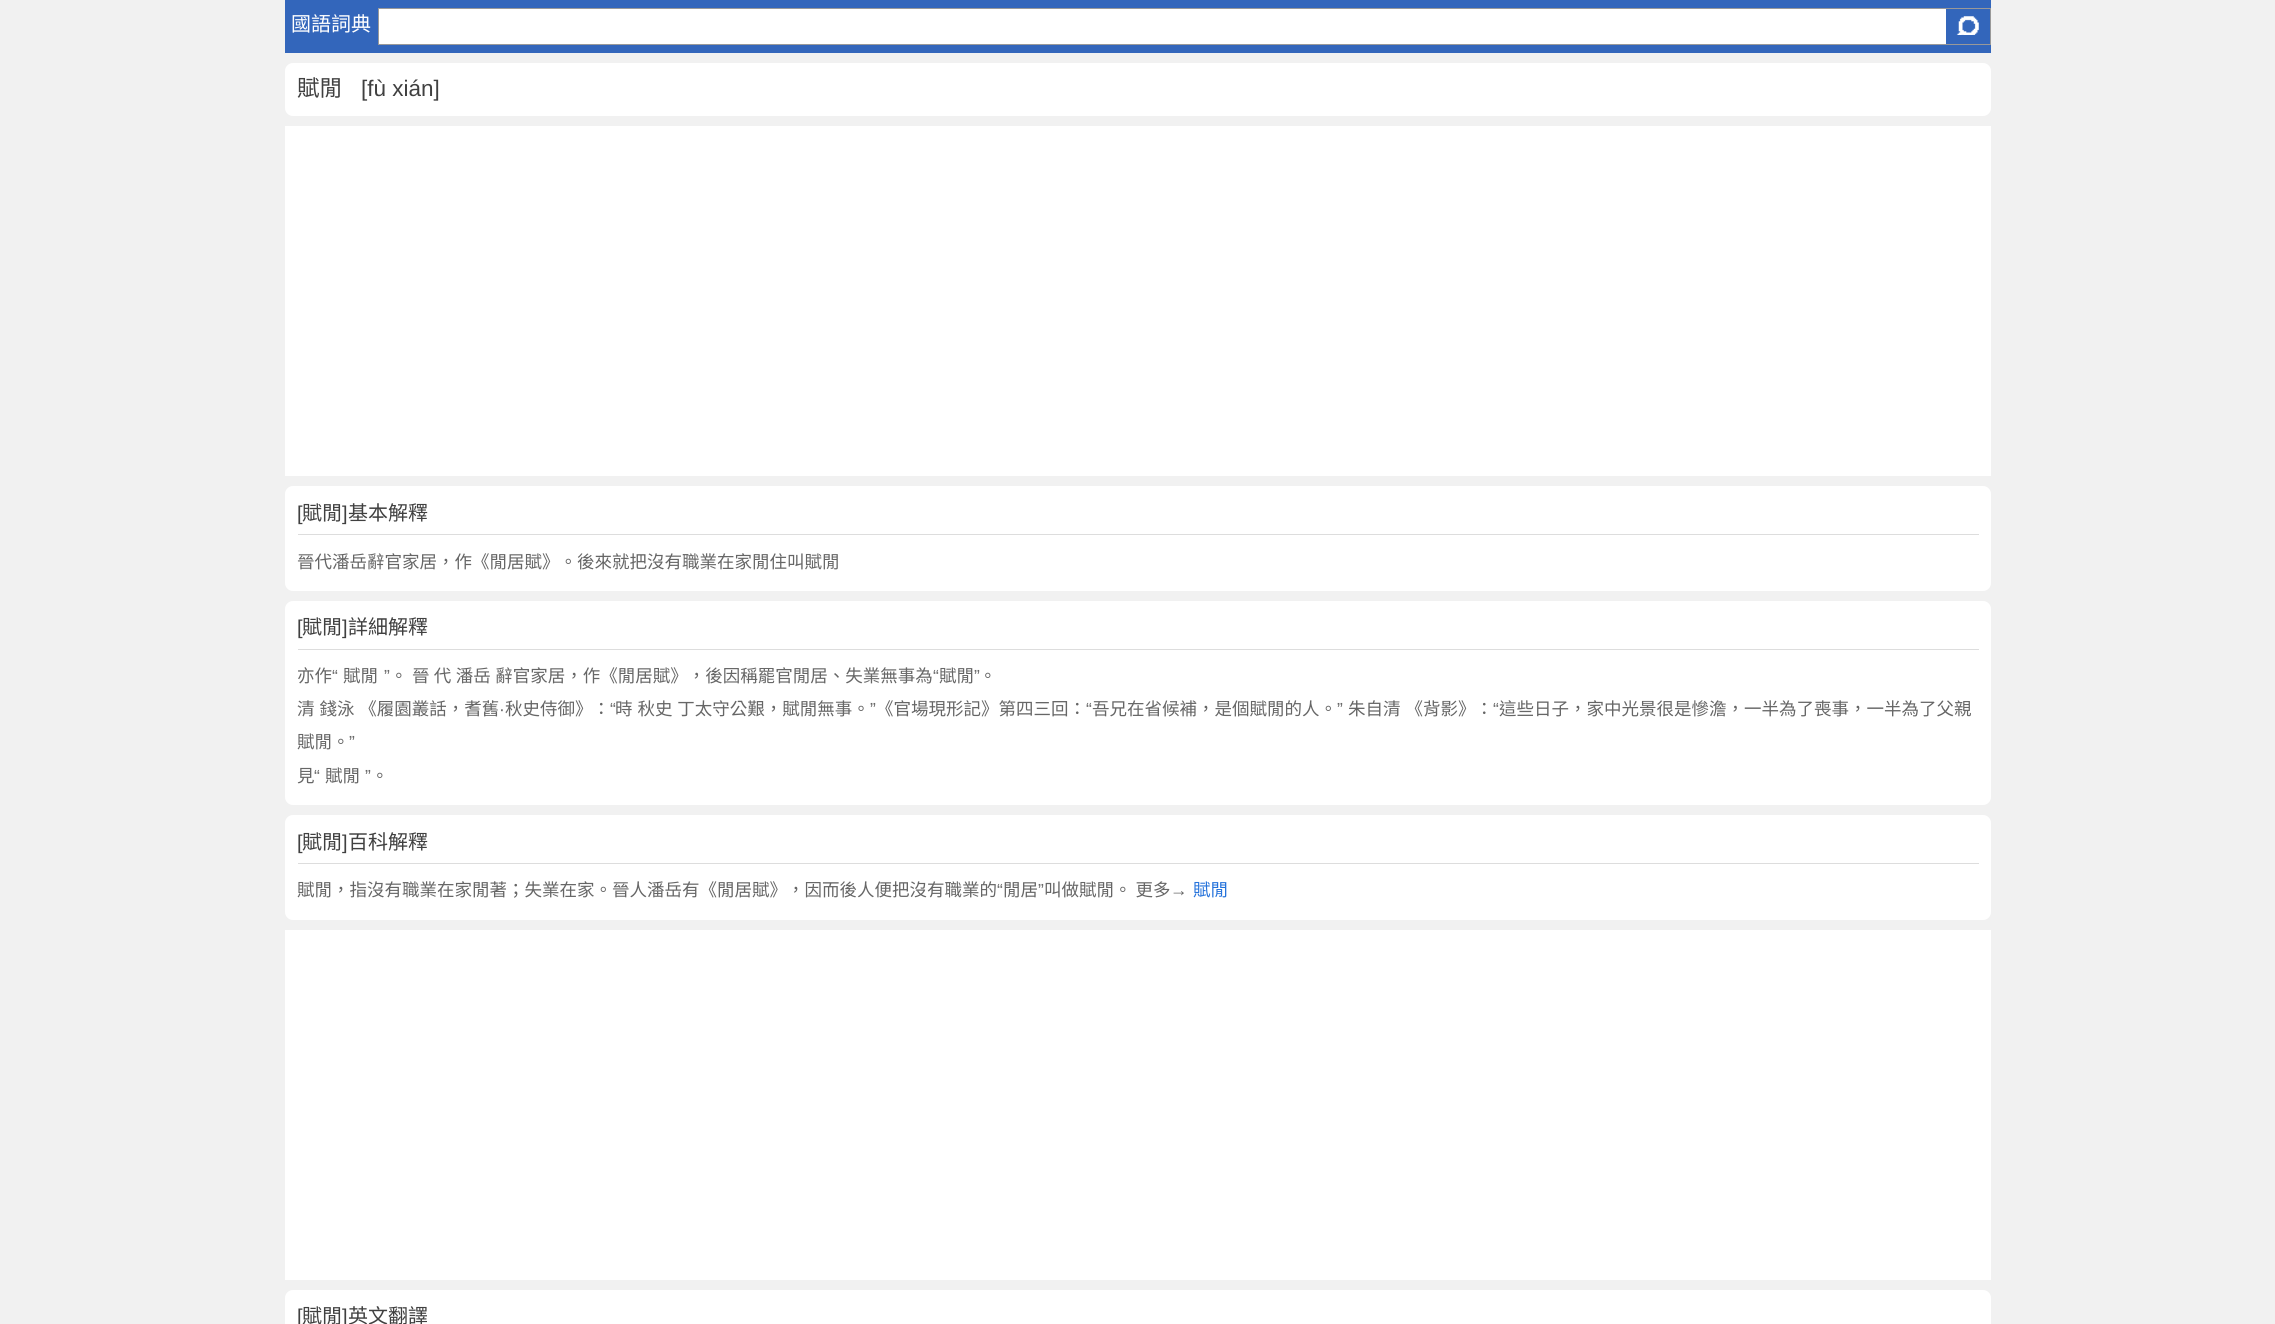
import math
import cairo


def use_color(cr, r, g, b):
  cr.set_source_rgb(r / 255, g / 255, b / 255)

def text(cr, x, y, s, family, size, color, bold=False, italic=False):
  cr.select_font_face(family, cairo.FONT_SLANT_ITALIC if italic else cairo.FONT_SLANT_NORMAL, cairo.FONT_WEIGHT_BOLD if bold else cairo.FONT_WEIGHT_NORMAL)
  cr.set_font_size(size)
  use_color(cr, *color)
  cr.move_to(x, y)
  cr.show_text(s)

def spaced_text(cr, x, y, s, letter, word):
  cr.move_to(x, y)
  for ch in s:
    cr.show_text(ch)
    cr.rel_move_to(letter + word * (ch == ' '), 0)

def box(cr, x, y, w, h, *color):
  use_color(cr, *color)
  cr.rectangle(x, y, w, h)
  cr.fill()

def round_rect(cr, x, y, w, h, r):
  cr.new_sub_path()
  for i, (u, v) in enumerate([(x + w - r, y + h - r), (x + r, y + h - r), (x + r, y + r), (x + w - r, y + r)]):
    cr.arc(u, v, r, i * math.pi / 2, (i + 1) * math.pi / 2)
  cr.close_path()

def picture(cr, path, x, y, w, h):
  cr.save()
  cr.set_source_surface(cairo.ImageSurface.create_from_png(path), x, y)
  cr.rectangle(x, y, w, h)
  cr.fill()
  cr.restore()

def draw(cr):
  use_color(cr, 241, 241, 241)
  cr.paint()
  box(cr, 285, 0, 1706, 53, 51, 102, 187)
  box(cr, 379, 9, 1567, 35, 255, 255, 255)
  cr.rectangle(378.5, 8.5, 1612, 36)
  use_color(cr, 153, 153, 153)
  cr.set_line_width(1)
  cr.stroke()
  picture(cr, "img_01.png", 1956, 16, 23, 19)
  use_color(cr, 255, 255, 255)
  round_rect(cr, 285, 63, 1706, 53, 8)
  cr.fill()
  box(cr, 285, 126, 1706, 350, 255, 255, 255)
  round_rect(cr, 285, 486, 1706, 105, 8)
  cr.fill()
  box(cr, 298, 534, 1681, 1, 221, 221, 221)
  use_color(cr, 255, 255, 255)
  round_rect(cr, 285, 601, 1706, 204, 8)
  cr.fill()
  box(cr, 298, 649, 1681, 1, 221, 221, 221)
  use_color(cr, 255, 255, 255)
  round_rect(cr, 285, 815, 1706, 105, 8)
  cr.fill()
  box(cr, 298, 863, 1681, 1, 221, 221, 221)
  box(cr, 285, 930, 1706, 350, 255, 255, 255)
  round_rect(cr, 285, 1290, 1706, 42, 8)
  cr.fill()
  text(cr, 291, 31, "國語詞典", "Noto Sans CJK TC", 20, (255, 255, 255))
  text(cr, 297, 96, "賦閒", "Noto Sans CJK TC", 22.5, (64, 64, 64))
  text(cr, 361, 96, "[fù xián]", "Liberation Sans", 22.5, (64, 64, 64))
  text(cr, 297, 520, "[", "Liberation Sans", 20, (64, 64, 64))
  text(cr, 302, 520, "賦閒", "Noto Sans CJK TC", 20, (64, 64, 64))
  text(cr, 342, 520, "]", "Liberation Sans", 20, (64, 64, 64))
  text(cr, 348, 520, "基本解釋", "Noto Sans CJK TC", 20, (64, 64, 64))
  text(cr, 297, 568, "晉代潘岳辭官家居，作《閒居賦》。後來就把沒有職業在家閒住叫賦閒", "Noto Sans CJK TC", 17.5, (102, 102, 102))
  text(cr, 297, 634, "[", "Liberation Sans", 20, (64, 64, 64))
  text(cr, 302, 634, "賦閒", "Noto Sans CJK TC", 20, (64, 64, 64))
  text(cr, 342, 634, "]", "Liberation Sans", 20, (64, 64, 64))
  text(cr, 348, 634, "詳細解釋", "Noto Sans CJK TC", 20, (64, 64, 64))
  text(cr, 297, 682, "亦作", "Noto Sans CJK TC", 17.5, (102, 102, 102))
  text(cr, 332, 682, "“", "Liberation Sans", 17.5, (102, 102, 102))
  text(cr, 343, 682, "賦閒", "Noto Sans CJK TC", 17.5, (102, 102, 102))
  text(cr, 384, 682, "”", "Liberation Sans", 17.5, (102, 102, 102))
  cr.select_font_face("Noto Sans CJK TC")
  spaced_text(cr, 390, 682, "。 晉 代 潘岳 辭官家居，作《閒居賦》，後因稱罷官閒居、失業無事為", 0, 0.5)
  text(cr, 933, 682, "“", "Liberation Sans", 17.5, (102, 102, 102))
  text(cr, 939, 682, "賦閒", "Noto Sans CJK TC", 17.5, (102, 102, 102))
  text(cr, 974, 682, "”", "Liberation Sans", 17.5, (102, 102, 102))
  text(cr, 979, 682, "。", "Noto Sans CJK TC", 17.5, (102, 102, 102))
  spaced_text(cr, 297, 715, "清 錢泳 《履園叢話，耆舊", 0, 1)
  text(cr, 505, 715, "秋史侍御》：", "Noto Sans CJK TC", 17.5, (102, 102, 102))
  text(cr, 610, 715, "“", "Liberation Sans", 17.5, (102, 102, 102))
  cr.select_font_face("Noto Sans CJK TC")
  spaced_text(cr, 615, 715, "時 秋史 丁太守公艱，賦閒無事。", 0, 1)
  text(cr, 870, 715, "”", "Liberation Sans", 17.5, (102, 102, 102))
  text(cr, 876, 715, "《官場現形記》第四三回：", "Noto Sans CJK TC", 17.5, (102, 102, 102))
  text(cr, 1086, 715, "“", "Liberation Sans", 17.5, (102, 102, 102))
  text(cr, 1092, 715, "吾兄在省候補，是個賦閒的人。", "Noto Sans CJK TC", 17.5, (102, 102, 102))
  text(cr, 1337, 715, "”", "Liberation Sans", 17.5, (102, 102, 102))
  cr.select_font_face("Noto Sans CJK TC")
  spaced_text(cr, 1348, 715, "朱自清 《背影》：", 0, 1)
  text(cr, 1493, 715, "“", "Liberation Sans", 17.5, (102, 102, 102))
  text(cr, 1499, 715, "這些日子，家中光景很是慘澹，一半為了喪事，一半為了父親", "Noto Sans CJK TC", 17.5, (102, 102, 102))
  text(cr, 499, 715, "·", "Liberation Sans", 17.5, (102, 102, 102))
  text(cr, 297, 748, "賦閒。", "Noto Sans CJK TC", 17.5, (102, 102, 102))
  text(cr, 349, 748, "”", "Liberation Sans", 17.5, (102, 102, 102))
  text(cr, 297, 782, "見", "Noto Sans CJK TC", 17.5, (102, 102, 102))
  text(cr, 314, 782, "“", "Liberation Sans", 17.5, (102, 102, 102))
  text(cr, 325, 782, "賦閒", "Noto Sans CJK TC", 17.5, (102, 102, 102))
  text(cr, 365, 782, "”", "Liberation Sans", 17.5, (102, 102, 102))
  text(cr, 371, 782, "。", "Noto Sans CJK TC", 17.5, (102, 102, 102))
  text(cr, 297, 849, "[", "Liberation Sans", 20, (64, 64, 64))
  text(cr, 302, 849, "賦閒", "Noto Sans CJK TC", 20, (64, 64, 64))
  text(cr, 342, 849, "]", "Liberation Sans", 20, (64, 64, 64))
  text(cr, 348, 849, "百科解釋", "Noto Sans CJK TC", 20, (64, 64, 64))
  text(cr, 297, 896, "賦閒，指沒有職業在家閒著；失業在家。晉人潘岳有《閒居賦》，因而後人便把沒有職業的", "Noto Sans CJK TC", 17.5, (102, 102, 102))
  text(cr, 997, 896, "“", "Liberation Sans", 17.5, (102, 102, 102))
  text(cr, 1003, 896, "閒居", "Noto Sans CJK TC", 17.5, (102, 102, 102))
  text(cr, 1038, 896, "”", "Liberation Sans", 17.5, (102, 102, 102))
  text(cr, 1044, 896, "叫做賦閒。 更多", "Noto Sans CJK TC", 17.5, (102, 102, 102))
  text(cr, 1193, 896, "賦閒", "Noto Sans CJK TC", 17.5, (38, 115, 219))
  text(cr, 1170, 896, "→", "Liberation Sans", 17.5, (102, 102, 102))
  text(cr, 297, 1323, "[", "Liberation Sans", 20, (64, 64, 64))
  text(cr, 302, 1323, "賦閒", "Noto Sans CJK TC", 20, (64, 64, 64))
  text(cr, 342, 1323, "]", "Liberation Sans", 20, (64, 64, 64))
  text(cr, 348, 1323, "英文翻譯", "Noto Sans CJK TC", 20, (64, 64, 64))


surface = cairo.ImageSurface(cairo.FORMAT_RGB24, 2275, 1324)
cr = cairo.Context(surface)
options = cairo.FontOptions()
options.set_hint_metrics(cairo.HINT_METRICS_OFF)
options.set_hint_style(cairo.HINT_STYLE_NONE)
cr.set_font_options(options)
cr.set_miter_limit(4)
draw(cr)
surface.write_to_png("out.png")
